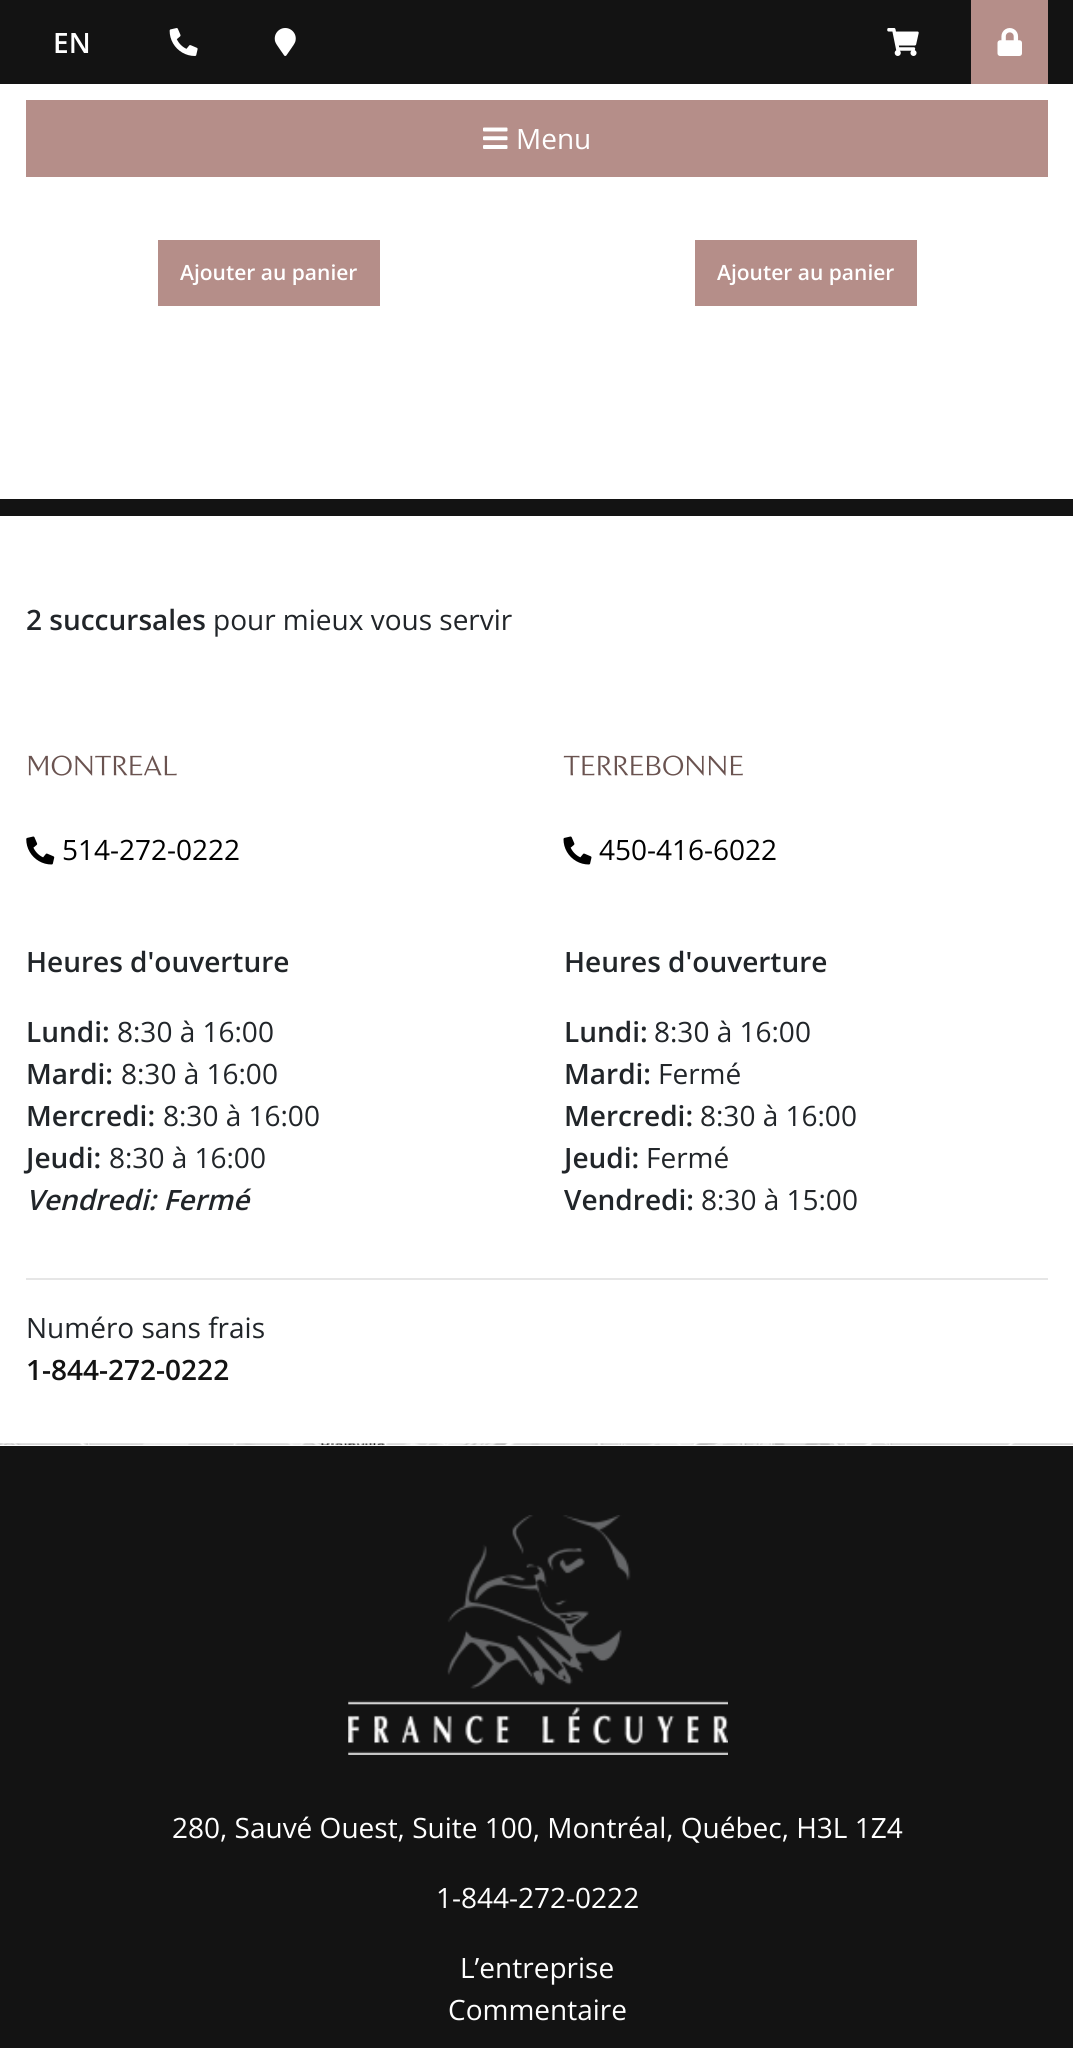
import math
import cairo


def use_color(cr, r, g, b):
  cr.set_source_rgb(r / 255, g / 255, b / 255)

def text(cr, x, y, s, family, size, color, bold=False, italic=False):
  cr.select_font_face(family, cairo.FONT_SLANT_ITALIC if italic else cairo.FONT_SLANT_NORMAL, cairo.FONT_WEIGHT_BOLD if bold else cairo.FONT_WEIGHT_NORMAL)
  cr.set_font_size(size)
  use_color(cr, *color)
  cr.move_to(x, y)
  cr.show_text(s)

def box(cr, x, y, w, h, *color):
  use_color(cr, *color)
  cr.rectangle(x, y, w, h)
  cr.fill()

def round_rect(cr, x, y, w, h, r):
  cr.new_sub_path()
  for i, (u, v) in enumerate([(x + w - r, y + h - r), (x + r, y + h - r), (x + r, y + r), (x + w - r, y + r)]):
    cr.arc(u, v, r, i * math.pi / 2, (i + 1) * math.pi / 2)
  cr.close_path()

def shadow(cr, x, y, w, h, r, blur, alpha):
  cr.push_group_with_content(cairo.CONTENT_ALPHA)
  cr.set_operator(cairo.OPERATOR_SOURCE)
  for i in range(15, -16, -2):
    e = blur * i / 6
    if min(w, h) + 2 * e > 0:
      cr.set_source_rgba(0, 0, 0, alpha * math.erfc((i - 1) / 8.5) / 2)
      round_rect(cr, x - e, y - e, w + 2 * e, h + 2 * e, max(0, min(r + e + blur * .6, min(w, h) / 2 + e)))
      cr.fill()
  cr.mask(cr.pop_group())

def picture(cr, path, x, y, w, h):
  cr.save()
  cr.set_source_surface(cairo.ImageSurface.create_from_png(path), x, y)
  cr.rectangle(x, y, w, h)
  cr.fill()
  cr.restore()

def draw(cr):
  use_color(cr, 255, 255, 255)
  cr.paint()
  cr.save()
  cr.rectangle(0, 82, 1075, 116)
  cr.clip()
  cr.set_fill_rule(cairo.FILL_RULE_EVEN_ODD)
  cr.new_path()
  cr.move_to(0, 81)
  cr.line_to(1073, 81)
  cr.line_to(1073, 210)
  cr.line_to(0, 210)
  cr.close_path()
  cr.move_to(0, 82)
  cr.line_to(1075, 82)
  cr.line_to(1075, 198)
  cr.line_to(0, 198)
  cr.close_path()
  cr.clip()
  use_color(cr, 177, 178, 178)
  shadow(cr, 0, 88, 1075, 115, 0, 2, 1)
  cr.restore()
  box(cr, 0, 0, 1073, 84, 19, 19, 19)
  picture(cr, "img_01.png", 169, 28, 29, 28)
  picture(cr, "img_02.png", 274, 28, 22, 28)
  picture(cr, "img_03.png", 887, 28, 32, 28)
  box(cr, 971, 0, 77, 84, 181, 142, 137)
  picture(cr, "img_04.png", 997, 28, 25, 28)
  box(cr, 26, 100, 1022, 77, 181, 142, 137)
  picture(cr, "img_05.png", 483, 127, 25, 22)
  box(cr, 158, 240, 222, 66, 181, 142, 137)
  box(cr, 695, 240, 222, 66, 181, 142, 137)
  box(cr, 0, 499, 1073, 17, 19, 19, 19)
  picture(cr, "img_06.png", 28, 755, 149, 21)
  picture(cr, "img_07.png", 26, 836, 29, 29)
  picture(cr, "img_08.png", 563, 755, 180, 21)
  picture(cr, "img_09.png", 563, 836, 29, 29)
  box(cr, 26, 1278, 1022, 2, 230, 230, 230)
  picture(cr, "img_10.png", 0, 1443, 1073, 2)
  box(cr, 0, 1446, 1073, 602, 19, 19, 19)
  picture(cr, "img_11.png", 348, 1515, 380, 240)
  text(cr, 53, 53, "EN", "Open Sans SemiBold", 28, (255, 255, 255))
  text(cr, 516, 149, "Menu", "Open Sans", 28, (255, 255, 255))
  text(cr, 180, 280, "Ajouter au panier", "Open Sans SemiBold", 21, (255, 255, 255))
  text(cr, 717, 280, "Ajouter au panier", "Open Sans SemiBold", 21, (255, 255, 255))
  text(cr, 26, 630, "2 succursales", "Open Sans SemiBold", 28, (33, 37, 41))
  text(cr, 213, 630, "pour mieux vous servir", "Open Sans", 28, (33, 37, 41))
  text(cr, 62, 860, "514-272-0222", "Open Sans", 28, (0, 0, 0))
  text(cr, 26, 972, "Heures d'ouverture", "Open Sans SemiBold", 28, (33, 37, 41))
  text(cr, 26, 1042, "Lundi:", "Open Sans SemiBold", 28, (33, 37, 41))
  text(cr, 117, 1042, "8:30 à 16:00", "Open Sans", 28, (33, 37, 41))
  text(cr, 26, 1084, "Mardi:", "Open Sans SemiBold", 28, (33, 37, 41))
  text(cr, 121, 1084, "8:30 à 16:00", "Open Sans", 28, (33, 37, 41))
  text(cr, 26, 1126, "Mercredi:", "Open Sans SemiBold", 28, (33, 37, 41))
  text(cr, 163, 1126, "8:30 à 16:00", "Open Sans", 28, (33, 37, 41))
  text(cr, 26, 1168, "Jeudi:", "Open Sans SemiBold", 28, (33, 37, 41))
  text(cr, 109, 1168, "8:30 à 16:00", "Open Sans", 28, (33, 37, 41))
  text(cr, 26, 1210, "Vendredi: Fermé", "Open Sans SemiBold", 28, (33, 37, 41), italic=True)
  text(cr, 599, 860, "450-416-6022", "Open Sans", 28, (0, 0, 0))
  text(cr, 564, 972, "Heures d'ouverture", "Open Sans SemiBold", 28, (33, 37, 41))
  text(cr, 564, 1042, "Lundi:", "Open Sans SemiBold", 28, (33, 37, 41))
  text(cr, 654, 1042, "8:30 à 16:00", "Open Sans", 28, (33, 37, 41))
  text(cr, 564, 1084, "Mardi:", "Open Sans SemiBold", 28, (33, 37, 41))
  text(cr, 658, 1084, "Fermé", "Open Sans", 28, (33, 37, 41))
  text(cr, 564, 1126, "Mercredi:", "Open Sans SemiBold", 28, (33, 37, 41))
  text(cr, 700, 1126, "8:30 à 16:00", "Open Sans", 28, (33, 37, 41))
  text(cr, 564, 1168, "Jeudi:", "Open Sans SemiBold", 28, (33, 37, 41))
  text(cr, 646, 1168, "Fermé", "Open Sans", 28, (33, 37, 41))
  text(cr, 564, 1210, "Vendredi:", "Open Sans SemiBold", 28, (33, 37, 41))
  text(cr, 701, 1210, "8:30 à 15:00", "Open Sans", 28, (33, 37, 41))
  text(cr, 26, 1338, "Numéro sans frais", "Open Sans", 28, (33, 37, 41))
  text(cr, 26, 1380, "1-844-272-0222", "Open Sans SemiBold", 28, (19, 19, 19))
  text(cr, 172, 1838, "280, Sauvé Ouest, Suite 100, Montréal, Québec, H3L 1Z4", "Open Sans", 28, (255, 255, 255))
  text(cr, 436, 1908, "1-844-272-0222", "Open Sans", 28, (255, 255, 255))
  text(cr, 460, 1978, "L’entreprise", "Open Sans", 28, (255, 255, 255))
  text(cr, 448, 2020, "Commentaire", "Open Sans", 28, (255, 255, 255))


surface = cairo.ImageSurface(cairo.FORMAT_RGB24, 1073, 2048)
cr = cairo.Context(surface)
options = cairo.FontOptions()
options.set_hint_metrics(cairo.HINT_METRICS_OFF)
options.set_hint_style(cairo.HINT_STYLE_NONE)
cr.set_font_options(options)
cr.set_miter_limit(4)
draw(cr)
surface.write_to_png("out.png")
